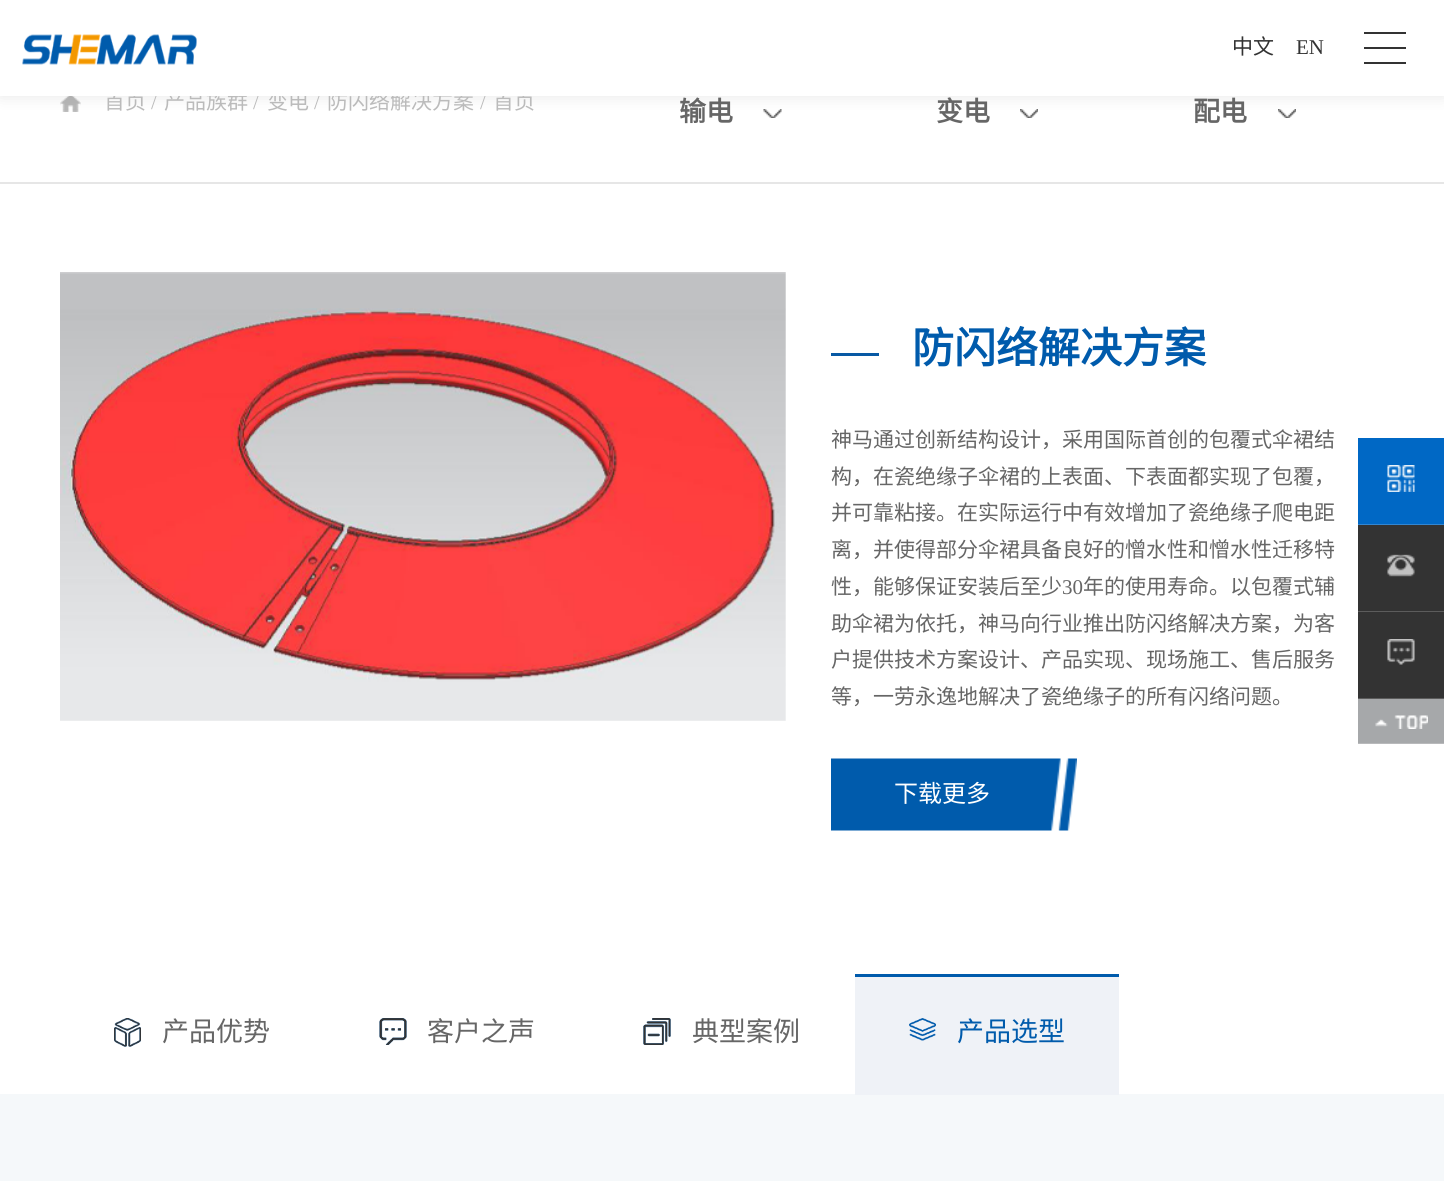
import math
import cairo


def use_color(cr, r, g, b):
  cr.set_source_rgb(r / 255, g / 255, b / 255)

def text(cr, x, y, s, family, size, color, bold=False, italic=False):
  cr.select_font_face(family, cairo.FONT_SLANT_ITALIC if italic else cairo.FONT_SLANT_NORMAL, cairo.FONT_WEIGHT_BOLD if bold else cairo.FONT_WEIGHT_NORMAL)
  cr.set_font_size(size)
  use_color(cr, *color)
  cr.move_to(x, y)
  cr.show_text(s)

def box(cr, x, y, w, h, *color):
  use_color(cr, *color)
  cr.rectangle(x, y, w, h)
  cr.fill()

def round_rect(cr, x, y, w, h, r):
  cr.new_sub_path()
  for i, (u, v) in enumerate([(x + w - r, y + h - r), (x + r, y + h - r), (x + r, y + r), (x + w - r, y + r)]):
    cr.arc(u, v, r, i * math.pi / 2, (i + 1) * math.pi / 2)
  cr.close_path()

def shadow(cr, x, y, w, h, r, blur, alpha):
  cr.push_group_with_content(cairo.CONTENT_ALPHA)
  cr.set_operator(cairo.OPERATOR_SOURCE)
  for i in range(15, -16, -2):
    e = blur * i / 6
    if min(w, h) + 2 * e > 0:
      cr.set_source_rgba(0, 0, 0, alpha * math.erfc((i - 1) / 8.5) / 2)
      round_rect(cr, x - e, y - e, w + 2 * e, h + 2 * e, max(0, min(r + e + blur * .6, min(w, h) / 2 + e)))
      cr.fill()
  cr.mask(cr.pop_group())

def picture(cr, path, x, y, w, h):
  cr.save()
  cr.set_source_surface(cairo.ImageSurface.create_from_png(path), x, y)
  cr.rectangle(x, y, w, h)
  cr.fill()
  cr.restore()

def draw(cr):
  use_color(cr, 255, 255, 255)
  cr.paint()
  picture(cr, "img_02.png", 60, 96, 21, 16)
  picture(cr, "img_03.png", 763, 109, 19, 9)
  picture(cr, "img_04.png", 1020, 109, 18, 9)
  picture(cr, "img_05.png", 1278, 109, 18, 9)
  use_color(cr, 0, 0, 0)
  shadow(cr, 0, 0, 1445, 96, 0, 7.5, 0.1)
  box(cr, 0, 182, 1444, 2, 230, 230, 230)
  picture(cr, "img_06.png", 60, 272, 726, 449)
  box(cr, 831, 353, 48, 3, 8, 89, 164)
  picture(cr, "img_07.png", 831, 758, 246, 73)
  picture(cr, "img_08.png", 114, 1018, 27, 29)
  picture(cr, "img_09.png", 114, 1018, 27, 29)
  picture(cr, "img_10.png", 379, 1018, 28, 27)
  picture(cr, "img_11.png", 379, 1018, 28, 27)
  picture(cr, "img_12.png", 643, 1018, 28, 27)
  picture(cr, "img_13.png", 643, 1018, 28, 27)
  box(cr, 0, 1094, 1444, 87, 245, 248, 250)
  box(cr, 855, 977, 264, 118, 239, 242, 247)
  box(cr, 855, 974, 264, 3, 0, 91, 172)
  picture(cr, "img_14.png", 909, 1018, 27, 23)
  box(cr, 1358, 438, 86, 86, 0, 104, 197)
  box(cr, 1358, 524, 86, 1, 51, 134, 209)
  picture(cr, "img_15.png", 1387, 465, 28, 27)
  box(cr, 1358, 525, 86, 86, 51, 51, 51)
  box(cr, 1358, 611, 86, 1, 92, 92, 92)
  picture(cr, "img_16.png", 1387, 554, 28, 23)
  box(cr, 1358, 612, 86, 86, 51, 51, 51)
  box(cr, 1358, 698, 86, 1, 92, 92, 92)
  picture(cr, "img_17.png", 1387, 639, 28, 26)
  box(cr, 1358, 699, 86, 44, 166, 168, 170)
  box(cr, 1358, 743, 86, 1, 184, 185, 187)
  picture(cr, "img_18.png", 1375, 715, 53, 14)
  text(cr, 104, 109, "首页", "Noto Sans CJK SC", 21, (187, 187, 187))
  text(cr, 151, 109, "/", "Liberation Serif", 21, (187, 187, 187))
  text(cr, 164, 109, "产品族群", "Noto Sans CJK SC", 21, (187, 187, 187))
  text(cr, 253, 109, "/", "Liberation Serif", 21, (187, 187, 187))
  text(cr, 267, 109, "变电", "Noto Sans CJK SC", 21, (187, 187, 187))
  text(cr, 314, 109, "/", "Liberation Serif", 21, (187, 187, 187))
  text(cr, 327, 109, "防闪络解决方案", "Noto Sans CJK SC", 21, (187, 187, 187))
  text(cr, 480, 109, "/", "Liberation Serif", 21, (187, 187, 187))
  text(cr, 493, 109, "首页", "Noto Sans CJK SC", 21, (187, 187, 187))
  box(cr, 0, 0, 1444, 96, 255, 255, 255)
  box(cr, 1364, 32, 42, 2, 51, 51, 51)
  box(cr, 1364, 62, 42, 2, 51, 51, 51)
  box(cr, 1364, 47, 42, 2, 51, 51, 51)
  text(cr, 1296, 54, "EN", "Liberation Serif", 21, (51, 51, 51))
  text(cr, 1232, 54, "中文", "Noto Sans CJK SC", 21, (51, 51, 51))
  picture(cr, "img_01.png", 22, 34, 175, 31)
  text(cr, 679, 121, "输电", "Noto Sans CJK SC", 27, (102, 102, 102), bold=True)
  text(cr, 936, 121, "变电", "Noto Sans CJK SC", 27, (102, 102, 102), bold=True)
  text(cr, 1193, 121, "配电", "Noto Sans CJK SC", 27, (102, 102, 102), bold=True)
  text(cr, 912, 363, "防闪络解决方案", "Noto Sans CJK SC", 42, (0, 91, 172), bold=True)
  text(cr, 831, 447, "神马通过创新结构设计，采用国际首创的包覆式伞裙结", "Noto Sans CJK SC", 21, (102, 102, 102))
  text(cr, 831, 484, "构，在瓷绝缘子伞裙的上表面、下表面都实现了包覆，", "Noto Sans CJK SC", 21, (102, 102, 102))
  text(cr, 831, 520, "并可靠粘接。在实际运行中有效增加了瓷绝缘子爬电距", "Noto Sans CJK SC", 21, (102, 102, 102))
  text(cr, 831, 557, "离，并使得部分伞裙具备良好的憎水性和憎水性迁移特", "Noto Sans CJK SC", 21, (102, 102, 102))
  text(cr, 831, 594, "性，能够保证安装后至少", "Noto Sans CJK SC", 21, (102, 102, 102))
  text(cr, 1062, 594, "30", "Liberation Serif", 21, (102, 102, 102))
  text(cr, 1083, 594, "年的使用寿命。以包覆式辅", "Noto Sans CJK SC", 21, (102, 102, 102))
  text(cr, 831, 631, "助伞裙为依托，神马向行业推出防闪络解决方案，为客", "Noto Sans CJK SC", 21, (102, 102, 102))
  text(cr, 831, 667, "户提供技术方案设计、产品实现、现场施工、售后服务", "Noto Sans CJK SC", 21, (102, 102, 102))
  text(cr, 831, 704, "等，一劳永逸地解决了瓷绝缘子的所有闪络问题。", "Noto Sans CJK SC", 21, (102, 102, 102))
  text(cr, 894, 802, "下载更多", "Noto Sans CJK SC", 24, (255, 255, 255))
  text(cr, 162, 1041, "产品优势", "Noto Sans CJK SC", 27, (102, 102, 102))
  text(cr, 427, 1041, "客户之声", "Noto Sans CJK SC", 27, (102, 102, 102))
  text(cr, 692, 1041, "典型案例", "Noto Sans CJK SC", 27, (102, 102, 102))
  text(cr, 957, 1041, "产品选型", "Noto Sans CJK SC", 27, (0, 91, 172))


surface = cairo.ImageSurface(cairo.FORMAT_RGB24, 1444, 1181)
cr = cairo.Context(surface)
options = cairo.FontOptions()
options.set_hint_metrics(cairo.HINT_METRICS_OFF)
options.set_hint_style(cairo.HINT_STYLE_NONE)
cr.set_font_options(options)
cr.set_miter_limit(4)
draw(cr)
surface.write_to_png("out.png")
